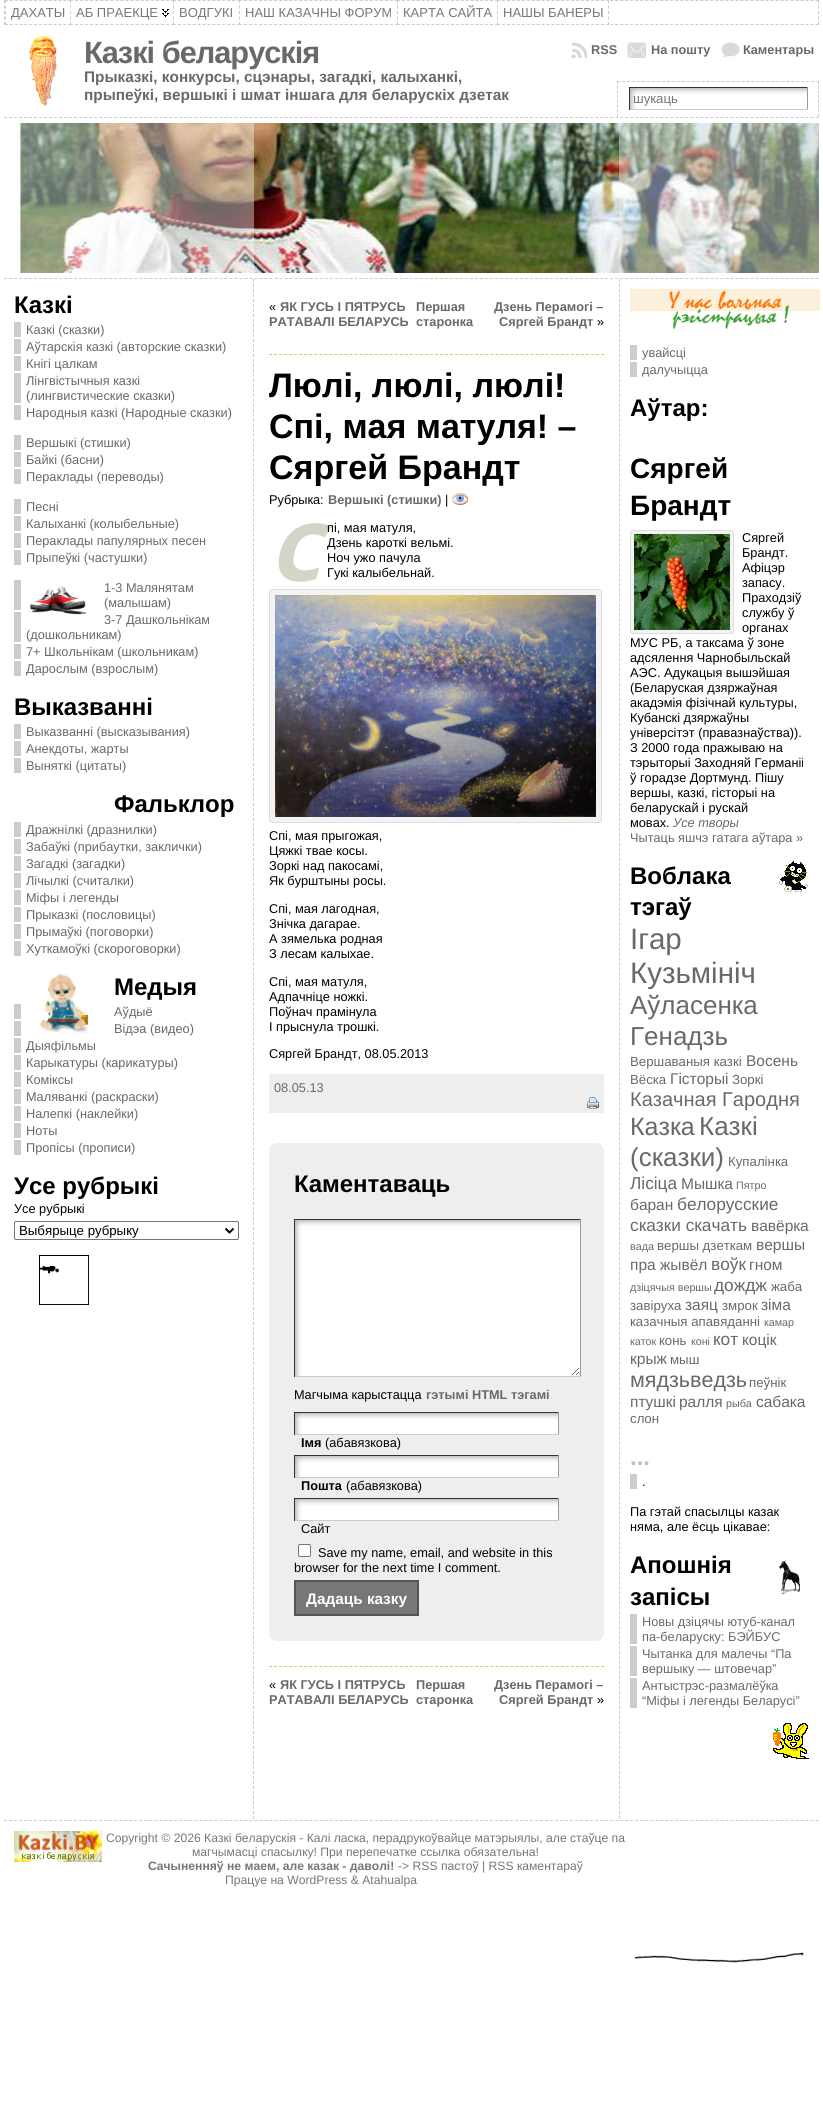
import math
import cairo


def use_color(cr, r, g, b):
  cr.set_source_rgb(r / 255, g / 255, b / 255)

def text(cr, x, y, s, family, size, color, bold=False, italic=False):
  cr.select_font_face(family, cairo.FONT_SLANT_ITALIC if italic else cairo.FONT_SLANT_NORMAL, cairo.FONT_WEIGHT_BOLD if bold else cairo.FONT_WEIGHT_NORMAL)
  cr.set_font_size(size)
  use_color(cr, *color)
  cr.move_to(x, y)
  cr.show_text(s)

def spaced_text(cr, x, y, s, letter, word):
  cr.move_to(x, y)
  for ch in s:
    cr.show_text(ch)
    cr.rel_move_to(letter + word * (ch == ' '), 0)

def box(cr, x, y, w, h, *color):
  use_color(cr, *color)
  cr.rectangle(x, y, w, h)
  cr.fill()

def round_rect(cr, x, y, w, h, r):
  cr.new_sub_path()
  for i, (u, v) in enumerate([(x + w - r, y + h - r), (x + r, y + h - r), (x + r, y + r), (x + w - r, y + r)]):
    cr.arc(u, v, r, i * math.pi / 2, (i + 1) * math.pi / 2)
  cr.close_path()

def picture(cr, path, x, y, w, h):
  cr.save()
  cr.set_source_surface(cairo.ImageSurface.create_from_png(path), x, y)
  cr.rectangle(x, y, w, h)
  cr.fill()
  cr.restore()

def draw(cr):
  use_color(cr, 255, 255, 255)
  cr.paint()
  cr.new_path()
  cr.move_to(4, 0.5)
  cr.line_to(819, 0.5)
  use_color(cr, 204, 204, 204)
  cr.set_line_width(1)
  cr.set_dash([3, 2.01])
  cr.stroke()
  cr.new_path()
  cr.move_to(818.5, 0)
  cr.line_to(818.5, 25)
  cr.set_dash([3, 2.5])
  cr.stroke()
  cr.new_path()
  cr.move_to(4, 24.5)
  cr.line_to(819, 24.5)
  cr.set_dash([3, 2.01])
  cr.stroke()
  cr.new_path()
  cr.move_to(4.5, 0)
  cr.line_to(4.5, 25)
  cr.set_dash([3, 2.5])
  cr.stroke()
  box(cr, 5, 0, 65, 25, 255, 255, 255)
  cr.new_path()
  cr.move_to(5, 0.5)
  cr.line_to(71, 0.5)
  use_color(cr, 204, 204, 204)
  cr.set_dash([3, 1.85])
  cr.stroke()
  cr.new_path()
  cr.move_to(5, 24.5)
  cr.line_to(71, 24.5)
  cr.stroke()
  cr.new_path()
  cr.move_to(5.5, 0)
  cr.line_to(5.5, 25)
  cr.set_dash([3, 2.5])
  cr.stroke()
  box(cr, 70, 0, 103, 25, 255, 255, 255)
  picture(cr, "img_01.png", 162, 9, 7, 8)
  cr.new_path()
  cr.move_to(70, 0.5)
  cr.line_to(174, 0.5)
  use_color(cr, 204, 204, 204)
  cr.set_dash([3, 2.05])
  cr.stroke()
  cr.new_path()
  cr.move_to(70, 24.5)
  cr.line_to(174, 24.5)
  cr.stroke()
  cr.new_path()
  cr.move_to(70.5, 0)
  cr.line_to(70.5, 25)
  cr.set_dash([3, 2.5])
  cr.stroke()
  box(cr, 173, 0, 65, 25, 255, 255, 255)
  cr.new_path()
  cr.move_to(173, 0.5)
  cr.line_to(240, 0.5)
  use_color(cr, 204, 204, 204)
  cr.set_dash([3, 1.92])
  cr.stroke()
  cr.new_path()
  cr.move_to(173, 24.5)
  cr.line_to(240, 24.5)
  cr.stroke()
  cr.new_path()
  cr.move_to(173.5, 0)
  cr.line_to(173.5, 25)
  cr.set_dash([3, 2.5])
  cr.stroke()
  box(cr, 239, 0, 158, 25, 255, 255, 255)
  cr.new_path()
  cr.move_to(239, 0.5)
  cr.line_to(398, 0.5)
  use_color(cr, 204, 204, 204)
  cr.set_dash([3, 2.03])
  cr.stroke()
  cr.new_path()
  cr.move_to(239, 24.5)
  cr.line_to(398, 24.5)
  cr.stroke()
  cr.new_path()
  cr.move_to(239.5, 0)
  cr.line_to(239.5, 25)
  cr.set_dash([3, 2.5])
  cr.stroke()
  box(cr, 397, 0, 100, 25, 255, 255, 255)
  cr.new_path()
  cr.move_to(397, 0.5)
  cr.line_to(498, 0.5)
  use_color(cr, 204, 204, 204)
  cr.set_dash([3, 1.9])
  cr.stroke()
  cr.new_path()
  cr.move_to(397, 24.5)
  cr.line_to(498, 24.5)
  cr.stroke()
  cr.new_path()
  cr.move_to(397.5, 0)
  cr.line_to(397.5, 25)
  cr.set_dash([3, 2.5])
  cr.stroke()
  box(cr, 497, 0, 112, 25, 255, 255, 255)
  cr.new_path()
  cr.move_to(497, 0.5)
  cr.line_to(609, 0.5)
  use_color(cr, 204, 204, 204)
  cr.set_dash([3, 1.95])
  cr.stroke()
  cr.new_path()
  cr.move_to(608.5, 0)
  cr.line_to(608.5, 25)
  cr.set_dash([3, 2.5])
  cr.stroke()
  cr.new_path()
  cr.move_to(497, 24.5)
  cr.line_to(609, 24.5)
  cr.set_dash([3, 1.95])
  cr.stroke()
  cr.new_path()
  cr.move_to(497.5, 0)
  cr.line_to(497.5, 25)
  cr.set_dash([3, 2.5])
  cr.stroke()
  picture(cr, "img_02.png", 29, 36, 28, 71)
  picture(cr, "img_03.png", 571, 42, 16, 16)
  picture(cr, "img_04.png", 627, 42, 19, 16)
  picture(cr, "img_05.png", 721, 42, 19, 16)
  cr.new_path()
  cr.move_to(617, 81.5)
  cr.line_to(819, 81.5)
  cr.set_dash([3, 1.98])
  cr.stroke()
  cr.new_path()
  cr.move_to(818.5, 81)
  cr.line_to(818.5, 117)
  cr.set_dash([3, 1.71])
  cr.stroke()
  cr.new_path()
  cr.move_to(617.5, 81)
  cr.line_to(617.5, 117)
  cr.stroke()
  picture(cr, "img_06.png", 630, 88, 177, 21)
  box(cr, 629, 87, 179, 1, 51, 51, 51)
  box(cr, 807, 87, 1, 23, 153, 153, 153)
  box(cr, 629, 109, 179, 1, 204, 204, 204)
  box(cr, 629, 87, 1, 23, 51, 51, 51)
  cr.new_path()
  cr.move_to(4, 117.5)
  cr.line_to(819, 117.5)
  use_color(cr, 204, 204, 204)
  cr.set_dash([3, 2.01])
  cr.stroke()
  picture(cr, "img_07.png", 17, 123, 802, 150)
  cr.set_source_rgba(1, 1, 1, 0.4)
  cr.rectangle(18, 123, 236, 150)
  cr.fill()
  cr.rectangle(619, 123, 200, 150)
  cr.fill()
  cr.new_path()
  cr.move_to(4, 278.5)
  cr.line_to(819, 278.5)
  use_color(cr, 204, 204, 204)
  cr.stroke()
  cr.new_path()
  cr.move_to(253.5, 279)
  cr.line_to(253.5, 1820)
  cr.set_dash([3, 1.99])
  cr.stroke()
  box(cr, 14, 322, 7, 15, 204, 204, 204)
  box(cr, 14, 339, 7, 15, 204, 204, 204)
  box(cr, 14, 356, 7, 15, 204, 204, 204)
  box(cr, 14, 373, 7, 30, 204, 204, 204)
  box(cr, 14, 405, 7, 15, 204, 204, 204)
  box(cr, 14, 435, 7, 15, 204, 204, 204)
  box(cr, 14, 452, 7, 15, 204, 204, 204)
  box(cr, 14, 469, 7, 15, 204, 204, 204)
  box(cr, 14, 499, 7, 15, 204, 204, 204)
  box(cr, 14, 516, 7, 15, 204, 204, 204)
  box(cr, 14, 533, 7, 15, 204, 204, 204)
  box(cr, 14, 550, 7, 15, 204, 204, 204)
  box(cr, 14, 580, 7, 30, 204, 204, 204)
  box(cr, 14, 612, 7, 30, 204, 204, 204)
  box(cr, 14, 644, 7, 15, 204, 204, 204)
  box(cr, 14, 661, 7, 15, 204, 204, 204)
  picture(cr, "img_08.png", 29, 586, 58, 29)
  box(cr, 14, 724, 7, 15, 204, 204, 204)
  box(cr, 14, 741, 7, 15, 204, 204, 204)
  box(cr, 14, 758, 7, 15, 204, 204, 204)
  box(cr, 14, 822, 7, 15, 204, 204, 204)
  box(cr, 14, 839, 7, 15, 204, 204, 204)
  box(cr, 14, 856, 7, 15, 204, 204, 204)
  box(cr, 14, 873, 7, 15, 204, 204, 204)
  box(cr, 14, 890, 7, 15, 204, 204, 204)
  box(cr, 14, 907, 7, 15, 204, 204, 204)
  box(cr, 14, 924, 7, 15, 204, 204, 204)
  box(cr, 14, 941, 7, 15, 204, 204, 204)
  picture(cr, "img_09.png", 39, 972, 50, 61)
  box(cr, 14, 1004, 7, 15, 204, 204, 204)
  box(cr, 14, 1021, 7, 15, 204, 204, 204)
  box(cr, 14, 1038, 7, 15, 204, 204, 204)
  box(cr, 14, 1055, 7, 15, 204, 204, 204)
  box(cr, 14, 1072, 7, 15, 204, 204, 204)
  box(cr, 14, 1089, 7, 15, 204, 204, 204)
  box(cr, 14, 1106, 7, 15, 204, 204, 204)
  box(cr, 14, 1123, 7, 15, 204, 204, 204)
  box(cr, 14, 1140, 7, 15, 204, 204, 204)
  round_rect(cr, 14.5, 1221.5, 224, 18, 1.5)
  use_color(cr, 118, 118, 118)
  cr.set_dash([])
  cr.stroke()
  cr.new_path()
  cr.move_to(225.5, 1228.5)
  cr.line_to(229.5, 1232.5)
  cr.line_to(233.5, 1228.5)
  use_color(cr, 0, 0, 0)
  cr.set_line_width(2)
  cr.stroke()
  picture(cr, "img_10.png", 39, 1255, 50, 50)
  cr.new_path()
  cr.move_to(269, 354.5)
  cr.line_to(604, 354.5)
  use_color(cr, 192, 215, 98)
  cr.set_line_width(1)
  cr.set_dash([3, 2.03])
  cr.stroke()
  picture(cr, "img_11.png", 452, 493, 16, 12)
  use_color(cr, 243, 243, 243)
  round_rect(cr, 269.5, 589.5, 332, 233, 2.5)
  cr.fill_preserve()
  use_color(cr, 221, 221, 221)
  cr.set_dash([])
  cr.stroke()
  picture(cr, "img_12.png", 275, 595, 321, 222)
  box(cr, 269, 1074, 335, 39, 238, 238, 238)
  picture(cr, "img_13.png", 587, 1097, 12, 12)
  round_rect(cr, 269, 1143, 335, 498, 8)
  cr.fill()
  picture(cr, "img_14.png", 295, 1220, 285, 156)
  box(cr, 294, 1219, 287, 1, 51, 51, 51)
  box(cr, 580, 1219, 1, 158, 153, 153, 153)
  box(cr, 294, 1376, 287, 1, 204, 204, 204)
  box(cr, 294, 1219, 1, 158, 51, 51, 51)
  picture(cr, "img_15.png", 295, 1413, 263, 21)
  box(cr, 294, 1412, 265, 1, 51, 51, 51)
  box(cr, 558, 1412, 1, 23, 153, 153, 153)
  box(cr, 294, 1434, 265, 1, 204, 204, 204)
  box(cr, 294, 1412, 1, 23, 51, 51, 51)
  picture(cr, "img_15.png", 295, 1456, 263, 21)
  box(cr, 294, 1455, 265, 1, 51, 51, 51)
  box(cr, 558, 1455, 1, 23, 153, 153, 153)
  box(cr, 294, 1477, 265, 1, 204, 204, 204)
  box(cr, 294, 1455, 1, 23, 51, 51, 51)
  picture(cr, "img_15.png", 295, 1499, 263, 21)
  box(cr, 294, 1498, 265, 1, 51, 51, 51)
  box(cr, 558, 1498, 1, 23, 153, 153, 153)
  box(cr, 294, 1520, 265, 1, 204, 204, 204)
  box(cr, 294, 1498, 1, 23, 51, 51, 51)
  use_color(cr, 255, 255, 255)
  round_rect(cr, 298.5, 1544.5, 12, 12, 1.5)
  cr.fill_preserve()
  use_color(cr, 118, 118, 118)
  cr.stroke()
  use_color(cr, 119, 119, 119)
  cr.rectangle(295, 1581, 123, 34)
  cr.fill_preserve()
  use_color(cr, 85, 85, 85)
  cr.set_line_width(2)
  cr.stroke()
  cr.new_path()
  cr.move_to(269, 1666.5)
  cr.line_to(604, 1666.5)
  use_color(cr, 192, 215, 98)
  cr.set_line_width(1)
  cr.set_dash([3, 2.03])
  cr.stroke()
  cr.new_path()
  cr.move_to(619.5, 279)
  cr.line_to(619.5, 1820)
  use_color(cr, 204, 204, 204)
  cr.set_dash([3, 1.99])
  cr.stroke()
  picture(cr, "img_16.png", 630, 289, 190, 41)
  box(cr, 630, 345, 7, 15, 204, 204, 204)
  box(cr, 630, 362, 7, 15, 204, 204, 204)
  use_color(cr, 243, 243, 243)
  round_rect(cr, 630.5, 530.5, 103, 103, 2.5)
  cr.fill_preserve()
  use_color(cr, 221, 221, 221)
  cr.set_dash([])
  cr.stroke()
  picture(cr, "img_17.png", 634, 534, 96, 96)
  picture(cr, "img_18.png", 779, 861, 29, 31)
  box(cr, 630, 1474, 7, 15, 204, 204, 204)
  box(cr, 630, 1614, 7, 30, 204, 204, 204)
  box(cr, 630, 1646, 7, 30, 204, 204, 204)
  box(cr, 630, 1678, 7, 30, 204, 204, 204)
  picture(cr, "img_19.png", 779, 1560, 21, 35)
  picture(cr, "img_20.png", 773, 1723, 36, 36)
  cr.new_path()
  cr.move_to(4, 1820.5)
  cr.line_to(819, 1820.5)
  cr.set_dash([3, 2.01])
  cr.stroke()
  picture(cr, "img_21.png", 14, 1831, 88, 31)
  picture(cr, "img_22.png", 634, 1952, 170, 11)
  text(cr, 11, 17, "ДАХАТЫ", "Liberation Sans", 13, (119, 119, 119))
  text(cr, 76, 17, "АБ ПРАЕКЦЕ", "Liberation Sans", 13, (119, 119, 119))
  text(cr, 179, 17, "ВОДГУКІ", "Liberation Sans", 13, (119, 119, 119))
  text(cr, 245, 17, "НАШ КАЗАЧНЫ ФОРУМ", "Liberation Sans", 13, (119, 119, 119))
  text(cr, 403, 17, "КАРТА САЙТА", "Liberation Sans", 13, (119, 119, 119))
  text(cr, 503, 17, "НАШЫ БАНЕРЫ", "Liberation Sans", 13, (119, 119, 119))
  cr.select_font_face("Liberation Sans", cairo.FONT_SLANT_NORMAL, cairo.FONT_WEIGHT_BOLD)
  cr.set_font_size(30.75)
  use_color(cr, 105, 105, 105)
  spaced_text(cr, 84, 63, "Казкі беларускія", -1, 0)
  text(cr, 84, 82, "Прыказкі, конкурсы, сцэнары, загадкі, калыханкі,", "Liberation Sans", 15.35, (105, 105, 105), bold=True)
  text(cr, 84, 100, "прыпеўкі, вершыкі і шмат іншага для беларускіх дзетак", "Liberation Sans", 15.35, (105, 105, 105), bold=True)
  text(cr, 591, 54, "RSS", "Liberation Sans", 12.75, (105, 105, 105), bold=True)
  text(cr, 651, 54, "На пошту", "Liberation Sans", 12.75, (105, 105, 105), bold=True)
  text(cr, 743, 54, "Каментары", "Liberation Sans", 12.75, (105, 105, 105), bold=True)
  text(cr, 633, 103, "шукаць", "Liberation Sans", 13.25, (119, 119, 119))
  text(cr, 14, 313, "Казкі", "Liberation Sans", 24, (0, 0, 0), bold=True)
  text(cr, 26, 334, "Казкі (сказки)", "Liberation Sans", 12.75, (105, 105, 105))
  text(cr, 26, 351, "Аўтарскія казкі (авторские сказки)", "Liberation Sans", 12.75, (105, 105, 105))
  text(cr, 26, 368, "Кнігі цалкам", "Liberation Sans", 12.75, (105, 105, 105))
  text(cr, 26, 385, "Лінгвістычныя казкі", "Liberation Sans", 12.75, (105, 105, 105))
  text(cr, 26, 400, "(лингвистические сказки)", "Liberation Sans", 12.75, (105, 105, 105))
  text(cr, 26, 417, "Народныя казкі (Народные сказки)", "Liberation Sans", 12.75, (105, 105, 105))
  text(cr, 26, 447, "Вершыкі (стишки)", "Liberation Sans", 12.75, (105, 105, 105))
  text(cr, 26, 464, "Байкі (басни)", "Liberation Sans", 12.75, (105, 105, 105))
  text(cr, 26, 481, "Пераклады (переводы)", "Liberation Sans", 12.75, (105, 105, 105))
  text(cr, 26, 511, "Песні", "Liberation Sans", 12.75, (105, 105, 105))
  text(cr, 26, 528, "Калыханкі (колыбельные)", "Liberation Sans", 12.75, (105, 105, 105))
  text(cr, 26, 545, "Пераклады папулярных песен", "Liberation Sans", 12.75, (105, 105, 105))
  text(cr, 26, 562, "Прыпеўкі (частушки)", "Liberation Sans", 12.75, (105, 105, 105))
  text(cr, 104, 592, "1-3 Малянятам", "Liberation Sans", 12.75, (105, 105, 105))
  text(cr, 104, 607, "(малышам)", "Liberation Sans", 12.75, (105, 105, 105))
  text(cr, 104, 624, "3-7 Дашкольнікам", "Liberation Sans", 12.75, (105, 105, 105))
  text(cr, 26, 639, "(дошкольникам)", "Liberation Sans", 12.75, (105, 105, 105))
  text(cr, 26, 656, "7+ Школьнікам (школьникам)", "Liberation Sans", 12.75, (105, 105, 105))
  text(cr, 26, 673, "Дарослым (взрослым)", "Liberation Sans", 12.75, (105, 105, 105))
  text(cr, 14, 715, "Выказванні", "Liberation Sans", 24, (0, 0, 0), bold=True)
  text(cr, 26, 736, "Выказванні (высказывания)", "Liberation Sans", 12.75, (105, 105, 105))
  text(cr, 26, 753, "Анекдоты, жарты", "Liberation Sans", 12.75, (105, 105, 105))
  text(cr, 26, 770, "Выняткі (цитаты)", "Liberation Sans", 12.75, (105, 105, 105))
  text(cr, 114, 812, "Фальклор", "Liberation Sans", 24, (0, 0, 0), bold=True)
  text(cr, 26, 834, "Дражнілкі (дразнилки)", "Liberation Sans", 12.75, (105, 105, 105))
  text(cr, 26, 851, "Забаўкі (прибаутки, заклички)", "Liberation Sans", 12.75, (105, 105, 105))
  text(cr, 26, 868, "Загадкі (загадки)", "Liberation Sans", 12.75, (105, 105, 105))
  text(cr, 26, 885, "Лічылкі (считалки)", "Liberation Sans", 12.75, (105, 105, 105))
  text(cr, 26, 902, "Міфы і легенды", "Liberation Sans", 12.75, (105, 105, 105))
  text(cr, 26, 919, "Прыказкі (пословицы)", "Liberation Sans", 12.75, (105, 105, 105))
  text(cr, 26, 936, "Прымаўкі (поговорки)", "Liberation Sans", 12.75, (105, 105, 105))
  text(cr, 26, 953, "Хуткамоўкі (скороговорки)", "Liberation Sans", 12.75, (105, 105, 105))
  text(cr, 114, 995, "Медыя", "Liberation Sans", 24, (0, 0, 0), bold=True)
  text(cr, 114, 1016, "Аўдыё", "Liberation Sans", 12.75, (105, 105, 105))
  text(cr, 114, 1033, "Відэа (видео)", "Liberation Sans", 12.75, (105, 105, 105))
  text(cr, 26, 1050, "Дыяфільмы", "Liberation Sans", 12.75, (105, 105, 105))
  text(cr, 26, 1067, "Карыкатуры (карикатуры)", "Liberation Sans", 12.75, (105, 105, 105))
  text(cr, 26, 1084, "Комiксы", "Liberation Sans", 12.75, (105, 105, 105))
  text(cr, 26, 1101, "Маляванкі (раскраски)", "Liberation Sans", 12.75, (105, 105, 105))
  text(cr, 26, 1118, "Налепкі (наклейки)", "Liberation Sans", 12.75, (105, 105, 105))
  text(cr, 26, 1135, "Ноты", "Liberation Sans", 12.75, (105, 105, 105))
  text(cr, 26, 1152, "Пропісы (прописи)", "Liberation Sans", 12.75, (105, 105, 105))
  text(cr, 14, 1194, "Усе рубрыкі", "Liberation Sans", 24, (0, 0, 0), bold=True)
  text(cr, 14, 1213, "Усе рубрыкі", "Liberation Sans", 12.75, (0, 0, 0))
  text(cr, 19, 1235, "Выбярыце рубрыку", "Liberation Sans", 13.25, (0, 0, 0))
  text(cr, 269, 311, "«", "Liberation Sans", 12.75, (0, 0, 0))
  text(cr, 280, 311, "ЯК ГУСЬ I ПЯТРУСЬ", "Liberation Sans", 12.75, (105, 105, 105), bold=True)
  text(cr, 269, 326, "РАТАВАЛI БЕЛАРУСЬ", "Liberation Sans", 12.75, (105, 105, 105), bold=True)
  text(cr, 416, 311, "Першая", "Liberation Sans", 12.75, (105, 105, 105), bold=True)
  text(cr, 416, 326, "старонка", "Liberation Sans", 12.75, (105, 105, 105), bold=True)
  text(cr, 494, 311, "Дзень Перамогі –", "Liberation Sans", 12.75, (105, 105, 105), bold=True)
  text(cr, 499, 326, "Сяргей Брандт", "Liberation Sans", 12.75, (105, 105, 105), bold=True)
  text(cr, 597, 326, "»", "Liberation Sans", 12.75, (0, 0, 0))
  text(cr, 269, 397, "Люлі, люлі, люлі!", "Liberation Sans", 34, (0, 0, 0), bold=True)
  text(cr, 269, 438, "Спі, мая матуля! –", "Liberation Sans", 34, (0, 0, 0), bold=True)
  text(cr, 269, 479, "Сяргей Брандт", "Liberation Sans", 34, (0, 0, 0), bold=True)
  text(cr, 269, 504, "Рубрыка:", "Liberation Sans", 12.75, (0, 0, 0))
  text(cr, 328, 504, "Вершыкі (стишки)", "Liberation Sans", 12.75, (105, 105, 105), bold=True)
  text(cr, 445, 504, "|", "Liberation Sans", 12.75, (0, 0, 0))
  text(cr, 269, 581, "С", "Noto Sans ExtraBold", 80, (212, 212, 199), italic=True)
  text(cr, 327, 532, "пi, мая матуля,", "Liberation Sans", 12.75, (0, 0, 0))
  text(cr, 327, 547, "Дзень кароткi вельмi.", "Liberation Sans", 12.75, (0, 0, 0))
  text(cr, 327, 562, "Ноч ужо пачула", "Liberation Sans", 12.75, (0, 0, 0))
  text(cr, 327, 577, "Гукi калыбельнай.", "Liberation Sans", 12.75, (0, 0, 0))
  text(cr, 269, 840, "Спi, мая прыгожая,", "Liberation Sans", 12.75, (0, 0, 0))
  text(cr, 269, 855, "Цяжкi твае косы.", "Liberation Sans", 12.75, (0, 0, 0))
  text(cr, 269, 870, "Зоркi над пакосамi,", "Liberation Sans", 12.75, (0, 0, 0))
  text(cr, 269, 885, "Як бурштыны росы.", "Liberation Sans", 12.75, (0, 0, 0))
  text(cr, 269, 913, "Спi, мая лагодная,", "Liberation Sans", 12.75, (0, 0, 0))
  text(cr, 269, 928, "Знiчка дагарае.", "Liberation Sans", 12.75, (0, 0, 0))
  text(cr, 269, 943, "А зямелька родная", "Liberation Sans", 12.75, (0, 0, 0))
  text(cr, 269, 958, "З лесам калыхае.", "Liberation Sans", 12.75, (0, 0, 0))
  text(cr, 269, 986, "Спi, мая матуля,", "Liberation Sans", 12.75, (0, 0, 0))
  text(cr, 269, 1001, "Адпачнiце ножкi.", "Liberation Sans", 12.75, (0, 0, 0))
  text(cr, 269, 1016, "Поўнач прамiнула", "Liberation Sans", 12.75, (0, 0, 0))
  text(cr, 269, 1031, "I прыснула трошкi.", "Liberation Sans", 12.75, (0, 0, 0))
  text(cr, 269, 1058, "Сяргей Брандт, 08.05.2013", "Liberation Sans", 12.75, (0, 0, 0))
  text(cr, 274, 1092, "08.05.13", "Liberation Sans", 12.75, (105, 105, 105))
  text(cr, 294, 1192, "Каментаваць", "Liberation Sans", 24, (0, 0, 0), bold=True)
  text(cr, 294, 1399, "Магчыма карыстацца", "Liberation Sans", 12.75, (0, 0, 0))
  text(cr, 426, 1399, "гэтымі HTML тэгамі", "Liberation Sans", 12.75, (105, 105, 105), bold=True)
  text(cr, 301, 1447, "Імя", "Liberation Sans", 12.75, (0, 0, 0), bold=True)
  text(cr, 325, 1447, "(абавязкова)", "Liberation Sans", 12.75, (0, 0, 0))
  text(cr, 301, 1490, "Пошта", "Liberation Sans", 12.75, (0, 0, 0), bold=True)
  text(cr, 346, 1490, "(абавязкова)", "Liberation Sans", 12.75, (0, 0, 0))
  text(cr, 301, 1533, "Сайт", "Liberation Sans", 12.75, (0, 0, 0))
  text(cr, 318, 1557, "Save my name, email, and website in this", "Liberation Sans", 12.75, (0, 0, 0))
  text(cr, 294, 1572, "browser for the next time I comment.", "Liberation Sans", 12.75, (0, 0, 0))
  text(cr, 306, 1604, "Дадаць казку", "Liberation Sans", 15.35, (255, 255, 255), bold=True)
  text(cr, 269, 1689, "«", "Liberation Sans", 12.75, (0, 0, 0))
  text(cr, 280, 1689, "ЯК ГУСЬ I ПЯТРУСЬ", "Liberation Sans", 12.75, (105, 105, 105), bold=True)
  text(cr, 269, 1704, "РАТАВАЛI БЕЛАРУСЬ", "Liberation Sans", 12.75, (105, 105, 105), bold=True)
  text(cr, 416, 1689, "Першая", "Liberation Sans", 12.75, (105, 105, 105), bold=True)
  text(cr, 416, 1704, "старонка", "Liberation Sans", 12.75, (105, 105, 105), bold=True)
  text(cr, 494, 1689, "Дзень Перамогі –", "Liberation Sans", 12.75, (105, 105, 105), bold=True)
  text(cr, 499, 1704, "Сяргей Брандт", "Liberation Sans", 12.75, (105, 105, 105), bold=True)
  text(cr, 597, 1704, "»", "Liberation Sans", 12.75, (0, 0, 0))
  text(cr, 642, 357, "увайсці", "Liberation Sans", 12.75, (105, 105, 105))
  text(cr, 642, 374, "далучыцца", "Liberation Sans", 12.75, (105, 105, 105))
  text(cr, 630, 416, "Аўтар:", "Liberation Sans", 24, (0, 0, 0), bold=True)
  text(cr, 630, 478, "Сяргей", "Liberation Sans", 28, (0, 0, 0), bold=True)
  text(cr, 630, 515, "Брандт", "Liberation Sans", 28, (0, 0, 0), bold=True)
  text(cr, 742, 542, "Сяргей", "Liberation Sans", 12.75, (0, 0, 0))
  text(cr, 742, 557, "Брандт.", "Liberation Sans", 12.75, (0, 0, 0))
  text(cr, 742, 572, "Афіцэр", "Liberation Sans", 12.75, (0, 0, 0))
  text(cr, 742, 587, "запасу.", "Liberation Sans", 12.75, (0, 0, 0))
  text(cr, 742, 602, "Праходзіў", "Liberation Sans", 12.75, (0, 0, 0))
  text(cr, 742, 617, "службу ў", "Liberation Sans", 12.75, (0, 0, 0))
  text(cr, 742, 632, "органах", "Liberation Sans", 12.75, (0, 0, 0))
  text(cr, 630, 647, "МУС РБ, а таксама ў зоне", "Liberation Sans", 12.75, (0, 0, 0))
  text(cr, 630, 662, "адсялення Чарнобыльскай", "Liberation Sans", 12.75, (0, 0, 0))
  text(cr, 630, 677, "АЭС. Адукацыя вышэйшая", "Liberation Sans", 12.75, (0, 0, 0))
  text(cr, 630, 692, "(Беларуская дзяржаўная", "Liberation Sans", 12.75, (0, 0, 0))
  text(cr, 630, 707, "акадэмія фізічнай культуры,", "Liberation Sans", 12.75, (0, 0, 0))
  text(cr, 630, 722, "Кубанскі дзяржаўны", "Liberation Sans", 12.75, (0, 0, 0))
  text(cr, 630, 737, "універсітэт (правазнаўства)).", "Liberation Sans", 12.75, (0, 0, 0))
  text(cr, 630, 752, "З 2000 года пражываю на", "Liberation Sans", 12.75, (0, 0, 0))
  text(cr, 630, 767, "тэрыторыі Заходняй Германіі", "Liberation Sans", 12.75, (0, 0, 0))
  text(cr, 630, 782, "ў горадзе Дортмунд. Пішу", "Liberation Sans", 12.75, (0, 0, 0))
  text(cr, 630, 797, "вершы, казкі, гісторыі на", "Liberation Sans", 12.75, (0, 0, 0))
  text(cr, 630, 812, "беларускай і рускай", "Liberation Sans", 12.75, (0, 0, 0))
  text(cr, 630, 827, "мовах.", "Liberation Sans", 12.75, (0, 0, 0))
  text(cr, 673, 827, "Усе творы", "Liberation Sans", 12.75, (105, 105, 105), italic=True)
  text(cr, 630, 842, "Чытаць яшчэ гатага аўтара »", "Liberation Sans", 12.75, (105, 105, 105))
  text(cr, 630, 884, "Воблака", "Liberation Sans", 24, (0, 0, 0), bold=True)
  text(cr, 630, 915, "тэгаў", "Liberation Sans", 24, (0, 0, 0), bold=True)
  text(cr, 630, 949, "Ігар", "Liberation Sans", 29.5, (105, 105, 105))
  text(cr, 630, 983, "Кузьмініч", "Liberation Sans", 29.5, (105, 105, 105))
  text(cr, 630, 1014, "Аўласенка", "Liberation Sans", 26, (105, 105, 105))
  text(cr, 630, 1045, "Генадзь", "Liberation Sans", 26, (105, 105, 105))
  text(cr, 630, 1066, "Вершаваныя казкі", "Liberation Sans", 13.25, (105, 105, 105))
  text(cr, 746, 1066, "Восень", "Liberation Sans", 15.5, (105, 105, 105))
  text(cr, 630, 1084, "Вёска", "Liberation Sans", 13.25, (105, 105, 105))
  text(cr, 670, 1084, "Гісторыі", "Liberation Sans", 15.5, (105, 105, 105))
  text(cr, 732, 1084, "Зоркі", "Liberation Sans", 13.25, (105, 105, 105))
  text(cr, 630, 1106, "Казачная Гародня", "Liberation Sans", 20, (105, 105, 105))
  text(cr, 630, 1135, "Казка", "Liberation Sans", 25, (105, 105, 105))
  text(cr, 699, 1135, "Казкі", "Liberation Sans", 26, (105, 105, 105))
  text(cr, 630, 1166, "(сказки)", "Liberation Sans", 26, (105, 105, 105))
  text(cr, 728, 1166, "Купалінка", "Liberation Sans", 13.25, (105, 105, 105))
  text(cr, 630, 1189, "Лісіца", "Liberation Sans", 17.25, (105, 105, 105))
  text(cr, 681, 1189, "Мышка", "Liberation Sans", 15.5, (105, 105, 105))
  text(cr, 736, 1189, "Пятро", "Liberation Sans", 10.75, (105, 105, 105))
  text(cr, 630, 1210, "баран", "Liberation Sans", 15.5, (105, 105, 105))
  text(cr, 677, 1210, "белорусские", "Liberation Sans", 17.25, (105, 105, 105))
  text(cr, 630, 1231, "сказки скачать", "Liberation Sans", 17.25, (105, 105, 105))
  text(cr, 751, 1231, "вавёрка", "Liberation Sans", 15.5, (105, 105, 105))
  text(cr, 630, 1250, "вада", "Liberation Sans", 10.75, (105, 105, 105))
  text(cr, 657, 1250, "вершы дзеткам", "Liberation Sans", 13.25, (105, 105, 105))
  text(cr, 756, 1250, "вершы", "Liberation Sans", 15.5, (105, 105, 105))
  text(cr, 630, 1270, "пра жывёл", "Liberation Sans", 15.5, (105, 105, 105))
  text(cr, 711, 1270, "воўк", "Liberation Sans", 17.25, (105, 105, 105))
  text(cr, 749, 1270, "гном", "Liberation Sans", 15.5, (105, 105, 105))
  text(cr, 630, 1291, "дзіцячыя вершы", "Liberation Sans", 10.75, (105, 105, 105))
  text(cr, 714, 1291, "дождж", "Liberation Sans", 17.25, (105, 105, 105))
  text(cr, 771, 1291, "жаба", "Liberation Sans", 13.25, (105, 105, 105))
  text(cr, 630, 1310, "завіруха", "Liberation Sans", 13.25, (105, 105, 105))
  text(cr, 685, 1310, "заяц", "Liberation Sans", 15.5, (105, 105, 105))
  text(cr, 722, 1310, "змрок", "Liberation Sans", 13.25, (105, 105, 105))
  text(cr, 761, 1310, "зіма", "Liberation Sans", 15.5, (105, 105, 105))
  text(cr, 630, 1326, "казачныя апавяданні", "Liberation Sans", 13.25, (105, 105, 105))
  text(cr, 764, 1326, "камар", "Liberation Sans", 10.75, (105, 105, 105))
  text(cr, 630, 1345, "каток", "Liberation Sans", 10.75, (105, 105, 105))
  text(cr, 659, 1345, "конь", "Liberation Sans", 13.25, (105, 105, 105))
  text(cr, 691, 1345, "коні", "Liberation Sans", 10.75, (105, 105, 105))
  text(cr, 713, 1345, "кот", "Liberation Sans", 17.25, (105, 105, 105))
  text(cr, 742, 1345, "коцік", "Liberation Sans", 15.5, (105, 105, 105))
  text(cr, 630, 1364, "крыж", "Liberation Sans", 15.5, (105, 105, 105))
  text(cr, 670, 1364, "мыш", "Liberation Sans", 13.25, (105, 105, 105))
  text(cr, 630, 1387, "мядзьведзь", "Liberation Sans", 21.5, (105, 105, 105))
  text(cr, 749, 1387, "пеўнік", "Liberation Sans", 13.25, (105, 105, 105))
  text(cr, 630, 1407, "птушкі", "Liberation Sans", 15.5, (105, 105, 105))
  text(cr, 679, 1407, "ралля", "Liberation Sans", 15.5, (105, 105, 105))
  text(cr, 726, 1407, "рыба", "Liberation Sans", 10.75, (105, 105, 105))
  text(cr, 756, 1407, "сабака", "Liberation Sans", 15.5, (105, 105, 105))
  text(cr, 630, 1423, "слон", "Liberation Sans", 13.25, (105, 105, 105))
  text(cr, 630, 1465, "...", "Liberation Sans", 24, (192, 192, 192), bold=True)
  text(cr, 642, 1486, ".", "Liberation Sans", 12.75, (0, 0, 0))
  text(cr, 630, 1516, "Па гэтай спасылцы казак", "Liberation Sans", 12.75, (0, 0, 0))
  text(cr, 630, 1531, "няма, але ёсць цікавае:", "Liberation Sans", 12.75, (0, 0, 0))
  text(cr, 630, 1573, "Апошнія", "Liberation Sans", 24, (0, 0, 0), bold=True)
  text(cr, 630, 1605, "запісы", "Liberation Sans", 24, (0, 0, 0), bold=True)
  text(cr, 642, 1626, "Новы дзіцячы ютуб-канал", "Liberation Sans", 12.75, (105, 105, 105))
  text(cr, 642, 1641, "па-беларуску: БЭЙБУС", "Liberation Sans", 12.75, (105, 105, 105))
  text(cr, 642, 1658, "Чытанка для малечы “Па", "Liberation Sans", 12.75, (105, 105, 105))
  text(cr, 642, 1673, "вершыку — штовечар”", "Liberation Sans", 12.75, (105, 105, 105))
  text(cr, 642, 1690, "Антыстрэс-размалёўка", "Liberation Sans", 12.75, (105, 105, 105))
  text(cr, 642, 1705, "“Міфы і легенды Беларусі”", "Liberation Sans", 12.75, (105, 105, 105))
  text(cr, 106, 1842, "Copyright © 2026 Казкі беларускія - Калі ласка, перадрукоўвайце матэрыялы, але стаўце па", "Liberation Sans", 12.15, (119, 119, 119))
  text(cr, 192, 1856, "магчымасці спасылку! При перепечатке ссылка обязательна!", "Liberation Sans", 12.15, (119, 119, 119))
  text(cr, 148, 1870, "Cачыненняў не маем, але казак - даволі!", "Liberation Sans", 12.15, (119, 119, 119), bold=True)
  text(cr, 398, 1870, "-> RSS пастоў | RSS каментараў", "Liberation Sans", 12.15, (119, 119, 119))
  text(cr, 225, 1884, "Працуе на WordPress & Atahualpa", "Liberation Sans", 12.15, (119, 119, 119))


surface = cairo.ImageSurface(cairo.FORMAT_RGB24, 823, 2101)
cr = cairo.Context(surface)
options = cairo.FontOptions()
options.set_hint_metrics(cairo.HINT_METRICS_OFF)
options.set_hint_style(cairo.HINT_STYLE_NONE)
cr.set_font_options(options)
cr.set_miter_limit(4)
draw(cr)
surface.write_to_png("out.png")
